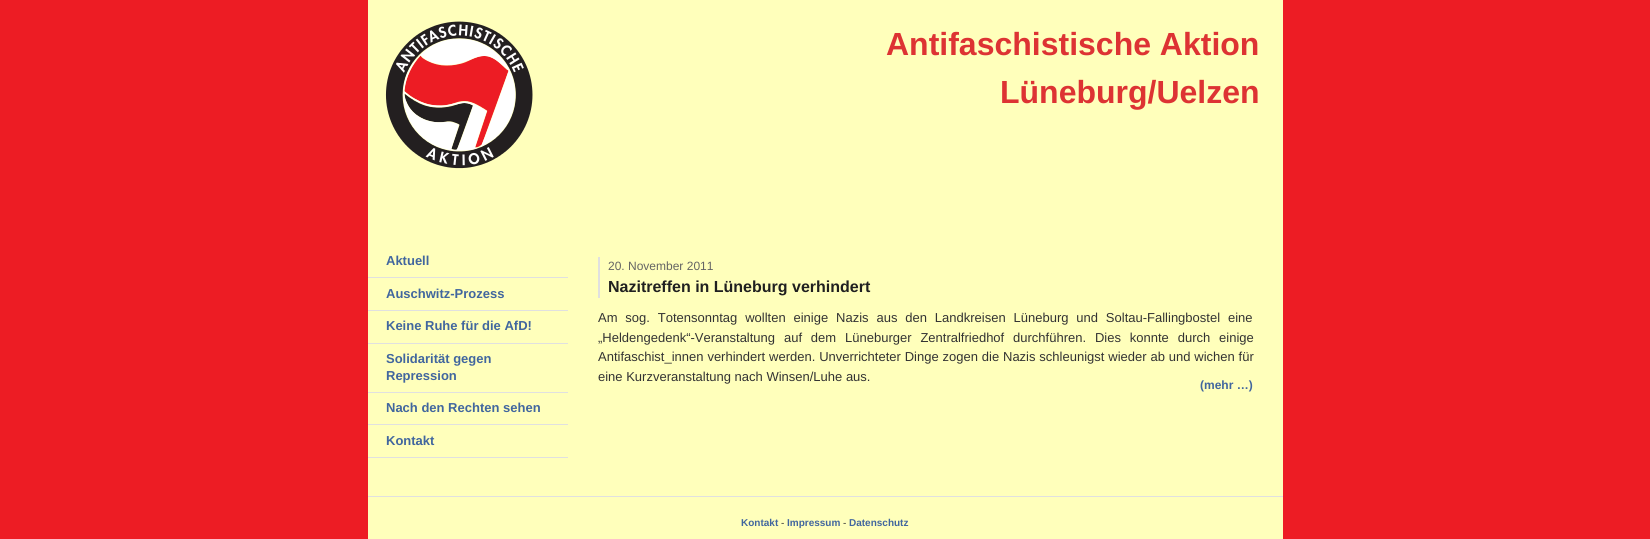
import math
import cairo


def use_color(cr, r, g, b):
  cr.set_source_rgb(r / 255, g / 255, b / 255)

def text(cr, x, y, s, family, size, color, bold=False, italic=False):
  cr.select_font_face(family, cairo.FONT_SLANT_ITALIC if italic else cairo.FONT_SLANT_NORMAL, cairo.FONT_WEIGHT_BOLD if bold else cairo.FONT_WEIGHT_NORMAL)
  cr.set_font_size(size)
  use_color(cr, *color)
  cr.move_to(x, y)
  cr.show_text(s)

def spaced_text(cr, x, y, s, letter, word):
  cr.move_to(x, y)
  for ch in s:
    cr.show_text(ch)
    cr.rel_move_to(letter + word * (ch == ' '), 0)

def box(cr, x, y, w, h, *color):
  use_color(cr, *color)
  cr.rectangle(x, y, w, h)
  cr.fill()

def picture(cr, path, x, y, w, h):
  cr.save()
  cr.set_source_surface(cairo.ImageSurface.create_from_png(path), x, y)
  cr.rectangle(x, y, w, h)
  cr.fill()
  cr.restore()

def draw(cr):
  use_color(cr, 237, 28, 36)
  cr.paint()
  box(cr, 368, 0, 915, 539, 255, 255, 187)
  picture(cr, "img_01.png", 385, 21, 148, 148)
  box(cr, 368, 277, 200, 1, 224, 224, 224)
  box(cr, 368, 310, 200, 1, 224, 224, 224)
  box(cr, 368, 343, 200, 1, 224, 224, 224)
  box(cr, 368, 392, 200, 1, 224, 224, 224)
  box(cr, 368, 424, 200, 1, 224, 224, 224)
  box(cr, 368, 457, 200, 1, 224, 224, 224)
  box(cr, 598, 257, 2, 41, 224, 224, 224)
  box(cr, 368, 496, 915, 1, 224, 224, 224)
  text(cr, 886, 55, "Antifaschistische Aktion", "Liberation Sans", 32, (221, 51, 51), bold=True)
  text(cr, 1000, 103, "Lüneburg/Uelzen", "Liberation Sans", 32, (221, 51, 51), bold=True)
  text(cr, 386, 265, "Aktuell", "Liberation Sans", 13, (65, 102, 158), bold=True)
  text(cr, 386, 298, "Auschwitz-Prozess", "Liberation Sans", 13, (65, 102, 158), bold=True)
  text(cr, 386, 330, "Keine Ruhe für die AfD!", "Liberation Sans", 13, (65, 102, 158), bold=True)
  text(cr, 386, 363, "Solidarität gegen", "Liberation Sans", 13, (65, 102, 158), bold=True)
  text(cr, 386, 380, "Repression", "Liberation Sans", 13, (65, 102, 158), bold=True)
  text(cr, 386, 412, "Nach den Rechten sehen", "Liberation Sans", 13, (65, 102, 158), bold=True)
  text(cr, 386, 445, "Kontakt", "Liberation Sans", 13, (65, 102, 158), bold=True)
  text(cr, 608, 270, "20. November 2011", "Liberation Sans", 12, (100, 100, 100))
  text(cr, 608, 292, "Nazitreffen in Lüneburg verhindert", "Liberation Sans", 16, (32, 32, 32), bold=True)
  cr.select_font_face("Liberation Sans")
  cr.set_font_size(13)
  use_color(cr, 51, 51, 51)
  spaced_text(cr, 598, 322, "Am sog. Totensonntag wollten einige Nazis aus den Landkreisen Lüneburg und Soltau-Fallingbostel eine", 0, 4.25)
  spaced_text(cr, 598, 342, "„Heldengedenk“-Veranstaltung auf dem Lüneburger Zentralfriedhof durchführen. Dies konnte durch einige", 0, 5.25)
  spaced_text(cr, 598, 361, "Antifaschist_innen verhindert werden. Unverrichteter Dinge zogen die Nazis schleunigst wieder ab und wichen für", 0, 0.25)
  text(cr, 598, 381, "eine Kurzveranstaltung nach Winsen/Luhe aus.", "Liberation Sans", 13, (51, 51, 51))
  text(cr, 1200, 389, "(mehr …)", "Liberation Sans", 12, (65, 102, 158), bold=True)
  text(cr, 741, 526, "Kontakt", "Liberation Sans", 10, (65, 102, 158), bold=True)
  text(cr, 781, 526, "-", "Liberation Sans", 10, (51, 51, 51))
  text(cr, 787, 526, "Impressum", "Liberation Sans", 10, (65, 102, 158), bold=True)
  text(cr, 843, 526, "-", "Liberation Sans", 10, (51, 51, 51))
  text(cr, 849, 526, "Datenschutz", "Liberation Sans", 10, (65, 102, 158), bold=True)


surface = cairo.ImageSurface(cairo.FORMAT_RGB24, 1650, 539)
cr = cairo.Context(surface)
options = cairo.FontOptions()
options.set_hint_metrics(cairo.HINT_METRICS_OFF)
options.set_hint_style(cairo.HINT_STYLE_NONE)
cr.set_font_options(options)
cr.set_miter_limit(4)
draw(cr)
surface.write_to_png("out.png")
